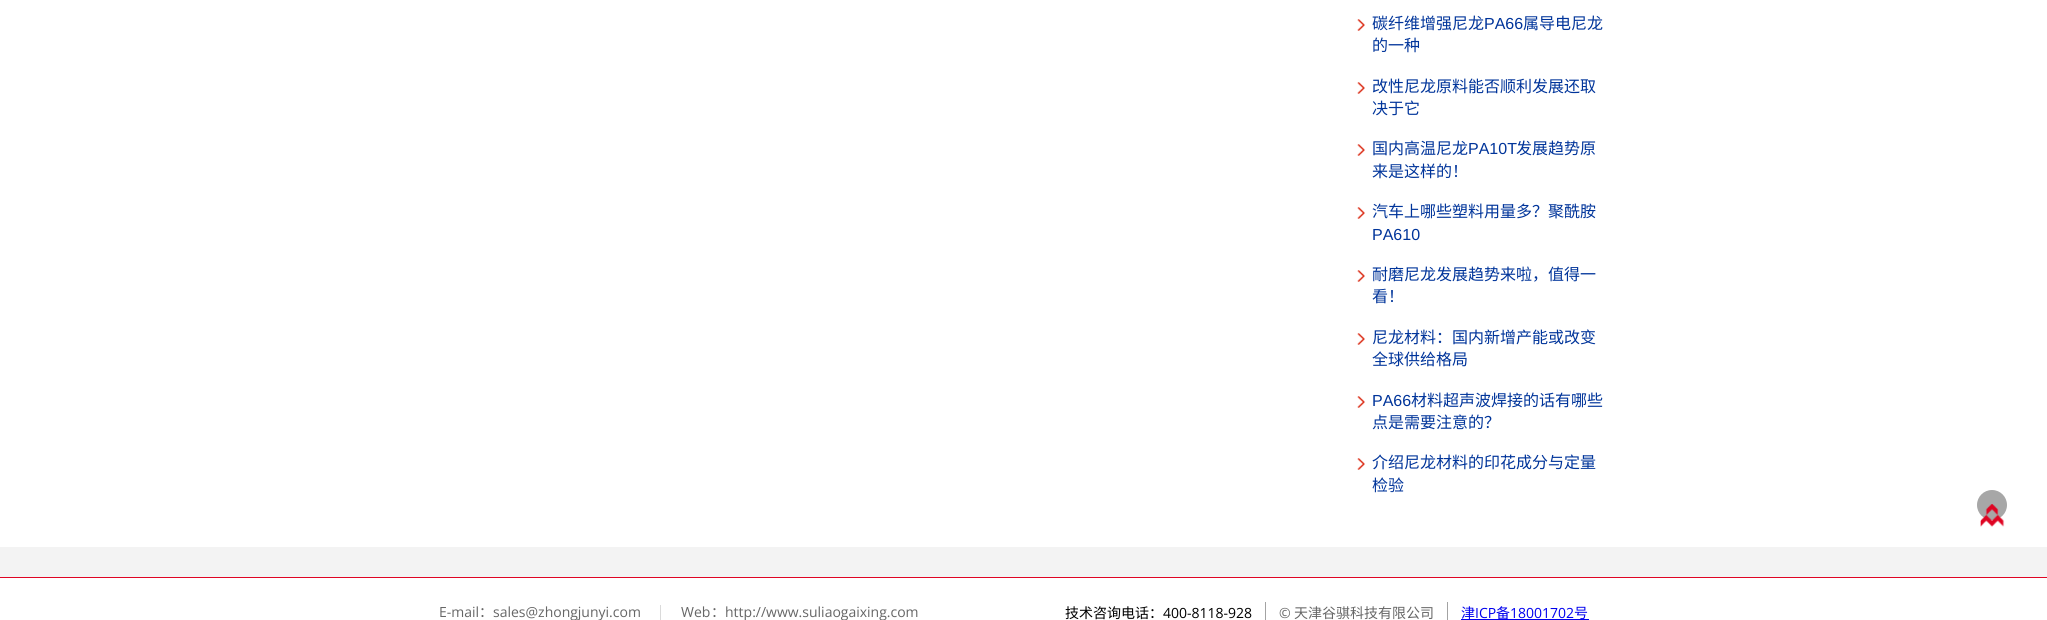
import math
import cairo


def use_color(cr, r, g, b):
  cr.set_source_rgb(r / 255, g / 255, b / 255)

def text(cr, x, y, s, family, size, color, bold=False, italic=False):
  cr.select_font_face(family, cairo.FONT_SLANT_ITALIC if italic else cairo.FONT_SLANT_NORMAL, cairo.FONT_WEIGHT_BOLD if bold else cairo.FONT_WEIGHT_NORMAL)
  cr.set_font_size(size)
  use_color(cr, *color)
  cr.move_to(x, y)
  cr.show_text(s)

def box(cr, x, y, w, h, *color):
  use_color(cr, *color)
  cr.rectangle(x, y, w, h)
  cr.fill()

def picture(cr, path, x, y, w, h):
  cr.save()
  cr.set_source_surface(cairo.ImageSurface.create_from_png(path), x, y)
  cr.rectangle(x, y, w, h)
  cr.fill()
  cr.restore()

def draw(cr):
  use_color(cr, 255, 255, 255)
  cr.paint()
  picture(cr, "img_01.png", 1357, 19, 8, 12)
  picture(cr, "img_01.png", 1357, 82, 8, 12)
  picture(cr, "img_01.png", 1357, 144, 8, 12)
  picture(cr, "img_02.png", 1357, 207, 8, 12)
  picture(cr, "img_01.png", 1357, 270, 8, 12)
  picture(cr, "img_01.png", 1357, 333, 8, 12)
  picture(cr, "img_01.png", 1357, 396, 8, 12)
  picture(cr, "img_03.png", 1357, 458, 8, 12)
  box(cr, 0, 547, 2047, 30, 243, 243, 243)
  box(cr, 0, 577, 2047, 1, 223, 5, 35)
  use_color(cr, 167, 167, 167)
  cr.arc(1992, 505, 15, 0, 2 * math.pi)
  cr.fill()
  picture(cr, "img_04.png", 1980, 504, 25, 23)
  box(cr, 660, 605, 1, 15, 218, 218, 218)
  box(cr, 1265, 602, 1, 18, 163, 163, 163)
  box(cr, 1447, 602, 1, 18, 163, 163, 163)
  box(cr, 1461, 619, 128, 1, 0, 0, 238)
  text(cr, 1372, 29, "碳纤维增强尼龙", "Noto Sans CJK SC", 16, (0, 52, 154))
  text(cr, 1484, 29, "PA66", "Liberation Sans", 16, (0, 52, 154))
  text(cr, 1523, 29, "属导电尼龙", "Noto Sans CJK SC", 16, (0, 52, 154))
  text(cr, 1372, 51, "的一种", "Noto Sans CJK SC", 16, (0, 52, 154))
  text(cr, 1372, 92, "改性尼龙原料能否顺利发展还取", "Noto Sans CJK SC", 16, (0, 52, 154))
  text(cr, 1372, 114, "决于它", "Noto Sans CJK SC", 16, (0, 52, 154))
  text(cr, 1372, 154, "国内高温尼龙", "Noto Sans CJK SC", 16, (0, 52, 154))
  text(cr, 1468, 154, "PA10T", "Liberation Sans", 16, (0, 52, 154))
  text(cr, 1516, 154, "发展趋势原", "Noto Sans CJK SC", 16, (0, 52, 154))
  text(cr, 1372, 177, "来是这样的！", "Noto Sans CJK SC", 16, (0, 52, 154))
  text(cr, 1372, 217, "汽车上哪些塑料用量多？聚酰胺", "Noto Sans CJK SC", 16, (0, 52, 154))
  text(cr, 1372, 240, "PA610", "Liberation Sans", 16, (0, 52, 154))
  text(cr, 1372, 280, "耐磨尼龙发展趋势来啦，值得一", "Noto Sans CJK SC", 16, (0, 52, 154))
  text(cr, 1372, 302, "看！", "Noto Sans CJK SC", 16, (0, 52, 154))
  text(cr, 1372, 343, "尼龙材料：国内新增产能或改变", "Noto Sans CJK SC", 16, (0, 52, 154))
  text(cr, 1372, 365, "全球供给格局", "Noto Sans CJK SC", 16, (0, 52, 154))
  text(cr, 1372, 406, "PA66", "Liberation Sans", 16, (0, 52, 154))
  text(cr, 1411, 406, "材料超声波焊接的话有哪些", "Noto Sans CJK SC", 16, (0, 52, 154))
  text(cr, 1372, 428, "点是需要注意的？", "Noto Sans CJK SC", 16, (0, 52, 154))
  text(cr, 1372, 468, "介绍尼龙材料的印花成分与定量", "Noto Sans CJK SC", 16, (0, 52, 154))
  text(cr, 1372, 491, "检验", "Noto Sans CJK SC", 16, (0, 52, 154))
  text(cr, 439, 617, "E-mail", "Open Sans", 14, (102, 102, 102))
  text(cr, 479, 617, "：", "Noto Sans CJK SC", 14, (102, 102, 102))
  text(cr, 493, 617, "sales@zhongjunyi.com", "Open Sans", 14, (102, 102, 102))
  text(cr, 681, 617, "Web", "Open Sans", 14, (102, 102, 102))
  text(cr, 711, 617, "：", "Noto Sans CJK SC", 14, (102, 102, 102))
  text(cr, 725, 617, "http://www.suliaogaixing.com", "Open Sans", 14, (102, 102, 102))
  text(cr, 1065, 618, "技术咨询电话：", "Noto Sans CJK SC", 14, (0, 0, 0))
  text(cr, 1163, 618, "400-8118-928", "Open Sans", 14, (0, 0, 0))
  text(cr, 1279, 618, "©", "Open Sans", 14, (102, 102, 102))
  text(cr, 1294, 618, "天津谷骐科技有限公司", "Noto Sans CJK SC", 14, (102, 102, 102))
  text(cr, 1461, 618, "津", "Noto Sans CJK SC", 14, (0, 0, 238))
  text(cr, 1475, 618, "ICP", "Open Sans", 14, (0, 0, 238))
  text(cr, 1496, 618, "备", "Noto Sans CJK SC", 14, (0, 0, 238))
  text(cr, 1510, 618, "18001702", "Open Sans", 14, (0, 0, 238))
  text(cr, 1574, 618, "号", "Noto Sans CJK SC", 14, (0, 0, 238))


surface = cairo.ImageSurface(cairo.FORMAT_RGB24, 2047, 620)
cr = cairo.Context(surface)
options = cairo.FontOptions()
options.set_hint_metrics(cairo.HINT_METRICS_OFF)
options.set_hint_style(cairo.HINT_STYLE_NONE)
cr.set_font_options(options)
cr.set_miter_limit(4)
draw(cr)
surface.write_to_png("out.png")
